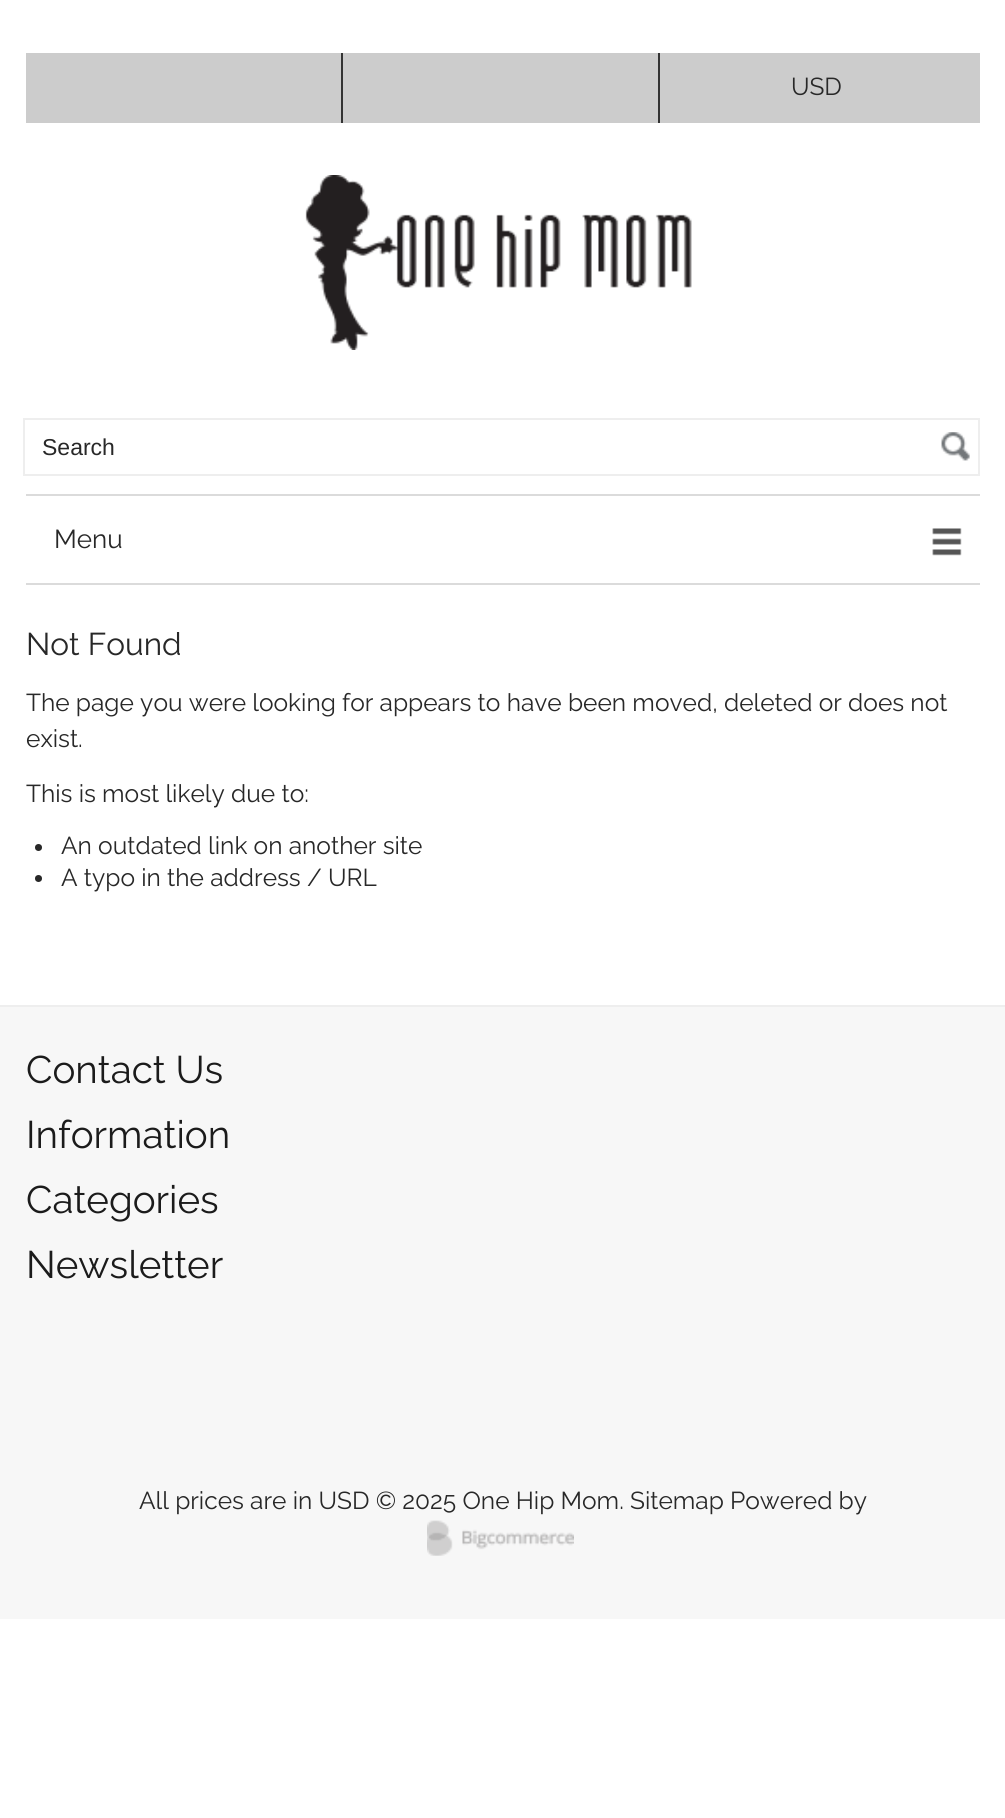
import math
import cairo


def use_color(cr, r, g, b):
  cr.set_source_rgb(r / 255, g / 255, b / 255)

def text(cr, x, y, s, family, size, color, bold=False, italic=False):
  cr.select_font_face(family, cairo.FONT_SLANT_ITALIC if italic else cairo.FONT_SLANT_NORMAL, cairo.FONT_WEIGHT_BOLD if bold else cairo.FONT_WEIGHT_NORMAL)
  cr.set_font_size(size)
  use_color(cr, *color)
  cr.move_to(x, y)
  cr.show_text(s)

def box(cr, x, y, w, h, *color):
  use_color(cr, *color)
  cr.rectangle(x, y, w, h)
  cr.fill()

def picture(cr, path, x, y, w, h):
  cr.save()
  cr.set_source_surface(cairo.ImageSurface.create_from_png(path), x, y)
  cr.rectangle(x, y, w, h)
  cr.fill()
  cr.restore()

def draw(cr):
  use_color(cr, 255, 255, 255)
  cr.paint()
  box(cr, 26, 53, 954, 70, 204, 204, 204)
  box(cr, 658, 53, 2, 70, 51, 51, 51)
  box(cr, 341, 53, 2, 70, 51, 51, 51)
  picture(cr, "img_01.png", 305, 175, 387, 175)
  cr.rectangle(24, 419, 955, 56)
  use_color(cr, 238, 238, 238)
  cr.stroke()
  picture(cr, "img_02.png", 941, 432, 29, 29)
  box(cr, 26, 494, 954, 2, 219, 219, 219)
  box(cr, 26, 583, 954, 2, 219, 219, 219)
  picture(cr, "img_03.png", 932, 528, 30, 28)
  use_color(cr, 40, 40, 40)
  cr.arc(38.5, 847.5, 3.5, 0, 2 * math.pi)
  cr.fill()
  cr.arc(38.5, 878.5, 3.5, 0, 2 * math.pi)
  cr.fill()
  box(cr, 0, 1007, 1005, 612, 247, 247, 247)
  box(cr, 0, 1005, 1005, 2, 238, 238, 238)
  picture(cr, "img_04.png", 427, 1520, 147, 36)
  text(cr, 791, 95, "USD", "Raleway Thin", 24.5, (40, 40, 40))
  text(cr, 42, 455, "Search", "Liberation Sans", 23, (40, 40, 40))
  text(cr, 54, 548, "Menu", "Raleway Thin", 26, (40, 40, 40))
  text(cr, 26, 655, "Not Found", "Raleway Thin", 31.5, (40, 40, 40))
  text(cr, 26, 711, "The page you were looking for appears to have been moved, deleted or does not", "Raleway Thin", 24.5, (40, 40, 40))
  text(cr, 26, 747, "exist.", "Raleway Thin", 24.5, (40, 40, 40))
  text(cr, 26, 802, "This is most likely due to:", "Raleway Thin", 24.5, (40, 40, 40))
  text(cr, 61, 854, "An outdated link on another site", "Raleway Thin", 24.5, (40, 40, 40))
  text(cr, 61, 886, "A typo in the address / URL", "Raleway Thin", 24.5, (40, 40, 40))
  text(cr, 26, 1083, "Contact Us", "Raleway Thin", 38.5, (27, 27, 27))
  text(cr, 26, 1148, "Information", "Raleway Thin", 38.5, (27, 27, 27))
  text(cr, 26, 1213, "Categories", "Raleway Thin", 38.5, (27, 27, 27))
  text(cr, 26, 1278, "Newsletter", "Raleway Thin", 38.5, (27, 27, 27))
  text(cr, 139, 1509, "All prices are in USD © 2025 One Hip Mom. Sitemap Powered by", "Raleway Thin", 24.5, (40, 40, 40))


surface = cairo.ImageSurface(cairo.FORMAT_RGB24, 1005, 1818)
cr = cairo.Context(surface)
options = cairo.FontOptions()
options.set_hint_metrics(cairo.HINT_METRICS_OFF)
options.set_hint_style(cairo.HINT_STYLE_NONE)
cr.set_font_options(options)
cr.set_miter_limit(4)
draw(cr)
surface.write_to_png("out.png")
